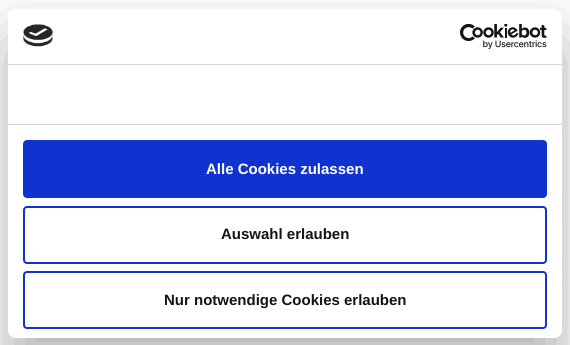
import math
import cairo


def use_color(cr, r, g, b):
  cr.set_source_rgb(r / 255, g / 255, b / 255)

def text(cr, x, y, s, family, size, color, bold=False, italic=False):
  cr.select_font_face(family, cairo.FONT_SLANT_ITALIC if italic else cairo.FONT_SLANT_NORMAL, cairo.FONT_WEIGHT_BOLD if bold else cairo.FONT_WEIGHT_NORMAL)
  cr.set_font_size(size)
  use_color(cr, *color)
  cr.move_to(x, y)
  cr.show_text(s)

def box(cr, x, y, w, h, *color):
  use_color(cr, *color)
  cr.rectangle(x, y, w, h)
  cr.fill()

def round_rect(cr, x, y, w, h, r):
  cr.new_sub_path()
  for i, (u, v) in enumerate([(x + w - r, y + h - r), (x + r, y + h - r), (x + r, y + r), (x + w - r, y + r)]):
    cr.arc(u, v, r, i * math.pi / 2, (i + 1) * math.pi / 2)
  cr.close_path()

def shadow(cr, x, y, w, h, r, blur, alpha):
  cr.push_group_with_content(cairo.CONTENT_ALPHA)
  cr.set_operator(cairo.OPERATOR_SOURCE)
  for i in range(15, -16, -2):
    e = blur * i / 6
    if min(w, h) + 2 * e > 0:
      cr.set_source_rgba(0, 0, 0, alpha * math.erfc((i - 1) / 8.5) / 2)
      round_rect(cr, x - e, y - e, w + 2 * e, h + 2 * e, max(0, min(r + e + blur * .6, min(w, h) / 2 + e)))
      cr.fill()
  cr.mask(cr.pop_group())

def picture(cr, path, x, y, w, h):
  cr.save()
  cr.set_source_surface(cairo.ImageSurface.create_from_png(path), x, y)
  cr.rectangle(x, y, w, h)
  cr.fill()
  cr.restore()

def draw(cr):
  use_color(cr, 255, 255, 255)
  cr.paint()
  use_color(cr, 0, 0, 0)
  shadow(cr, 8, 41, 554, 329, 8, 34, 0.3)
  use_color(cr, 255, 255, 255)
  round_rect(cr, 8, 9, 554, 329, 8)
  cr.fill()
  box(cr, 8, 64, 554, 1, 214, 214, 214)
  picture(cr, "img_01.png", 23, 24, 30, 23)
  picture(cr, "img_02.png", 460, 24, 87, 25)
  box(cr, 8, 124, 554, 1, 214, 214, 214)
  use_color(cr, 16, 50, 207)
  round_rect(cr, 24, 141, 522, 56, 3)
  cr.fill_preserve()
  cr.stroke()
  round_rect(cr, 24, 207, 522, 56, 3)
  cr.stroke()
  round_rect(cr, 24, 272, 522, 56, 3)
  cr.stroke()
  text(cr, 206, 174, "Alle Cookies zulassen", "Liberation Sans", 15, (255, 255, 255), bold=True)
  text(cr, 221, 239, "Auswahl erlauben", "Liberation Sans", 15, (20, 20, 20), bold=True)
  text(cr, 164, 305, "Nur notwendige Cookies erlauben", "Liberation Sans", 15, (20, 20, 20), bold=True)


surface = cairo.ImageSurface(cairo.FORMAT_RGB24, 570, 345)
cr = cairo.Context(surface)
options = cairo.FontOptions()
options.set_hint_metrics(cairo.HINT_METRICS_OFF)
options.set_hint_style(cairo.HINT_STYLE_NONE)
cr.set_font_options(options)
cr.set_miter_limit(4)
draw(cr)
surface.write_to_png("out.png")
